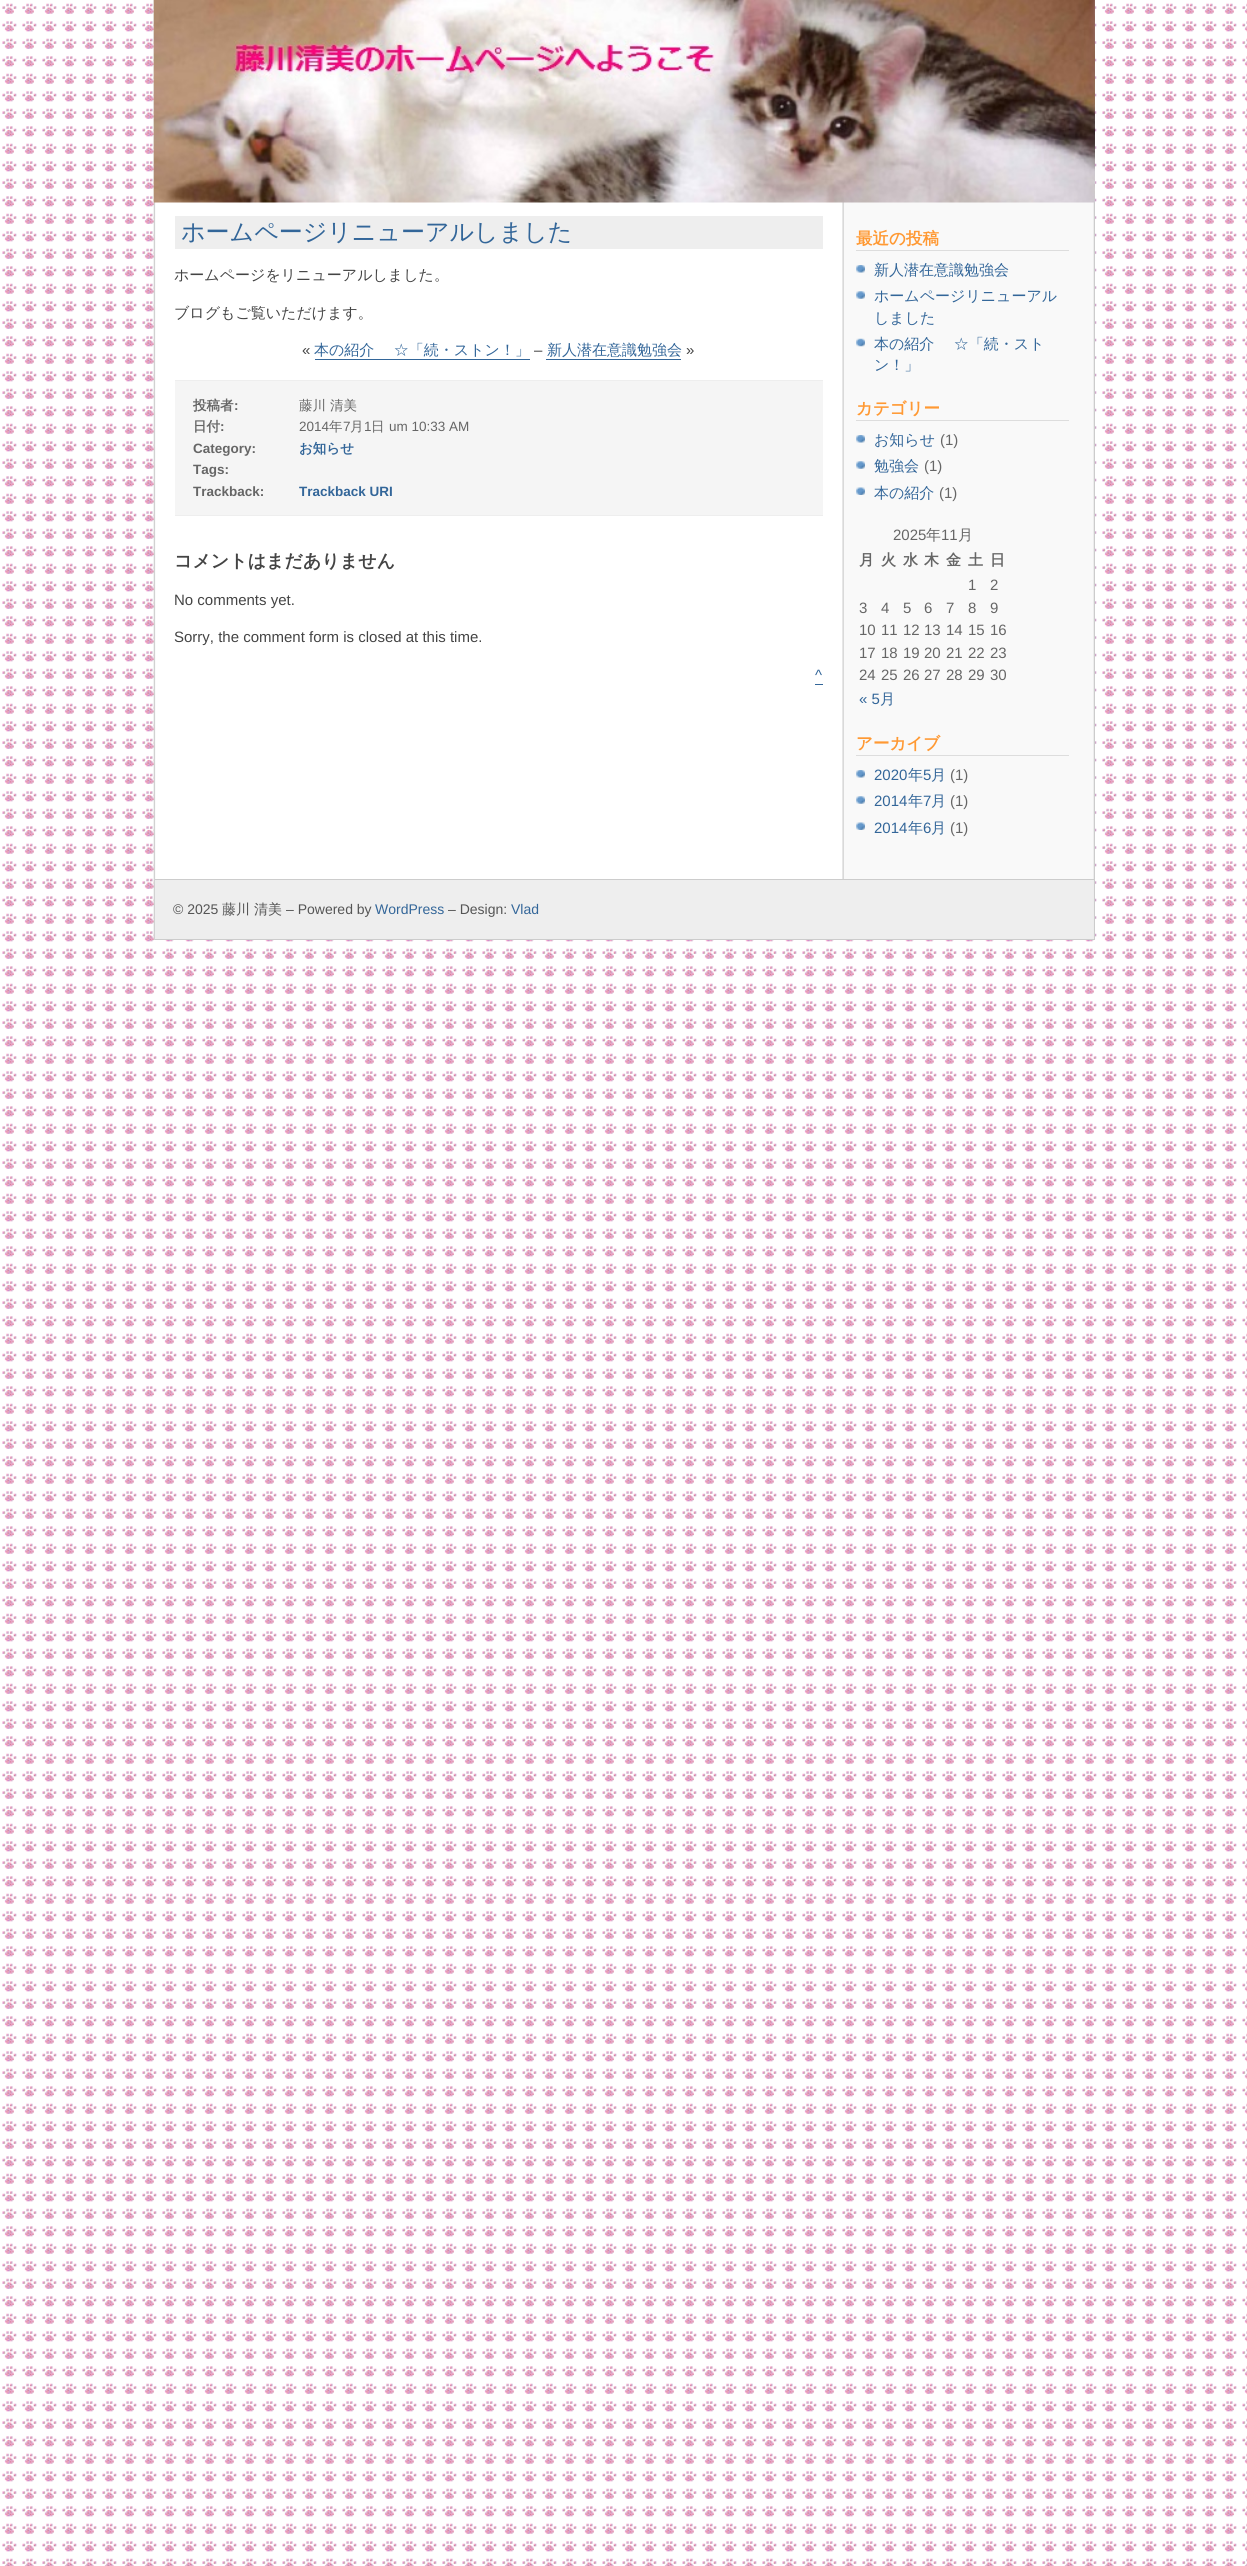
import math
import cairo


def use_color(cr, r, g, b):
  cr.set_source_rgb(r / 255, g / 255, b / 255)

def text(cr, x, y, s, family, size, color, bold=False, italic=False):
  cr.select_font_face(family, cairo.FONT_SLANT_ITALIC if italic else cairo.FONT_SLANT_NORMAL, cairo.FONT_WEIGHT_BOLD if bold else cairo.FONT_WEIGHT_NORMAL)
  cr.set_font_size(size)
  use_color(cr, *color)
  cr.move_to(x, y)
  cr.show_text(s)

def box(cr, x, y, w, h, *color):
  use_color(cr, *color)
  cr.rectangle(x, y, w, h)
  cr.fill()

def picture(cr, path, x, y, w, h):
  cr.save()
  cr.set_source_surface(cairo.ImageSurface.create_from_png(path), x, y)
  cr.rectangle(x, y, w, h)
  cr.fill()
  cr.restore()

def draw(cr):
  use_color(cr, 255, 255, 255)
  cr.paint()
  picture(cr, "img_01.png", 2, 3, 1245, 2563)
  picture(cr, "img_02.png", 153, 0, 942, 940)
  picture(cr, "img_03.png", 153, 0, 942, 203)
  box(cr, 155, 939, 939, 1, 204, 204, 204)
  box(cr, 175, 216, 648, 33, 238, 238, 238)
  box(cr, 315, 359, 215, 1, 51, 102, 153)
  box(cr, 546, 359, 135, 1, 51, 102, 153)
  box(cr, 175, 381, 648, 134, 245, 245, 245)
  box(cr, 175, 380, 648, 1, 238, 238, 238)
  box(cr, 175, 515, 648, 1, 238, 238, 238)
  box(cr, 815, 684, 8, 1, 51, 102, 153)
  box(cr, 856, 250, 213, 1, 221, 221, 221)
  picture(cr, "img_04.png", 856, 265, 9, 8)
  picture(cr, "img_05.png", 856, 291, 9, 8)
  picture(cr, "img_06.png", 856, 338, 9, 9)
  box(cr, 856, 420, 213, 1, 221, 221, 221)
  picture(cr, "img_04.png", 856, 435, 9, 8)
  picture(cr, "img_07.png", 856, 461, 9, 8)
  picture(cr, "img_08.png", 856, 487, 9, 8)
  box(cr, 856, 755, 213, 1, 221, 221, 221)
  picture(cr, "img_04.png", 856, 770, 9, 8)
  picture(cr, "img_07.png", 856, 796, 9, 8)
  picture(cr, "img_08.png", 856, 822, 9, 8)
  box(cr, 155, 880, 938, 59, 238, 238, 238)
  box(cr, 155, 879, 939, 1, 204, 204, 204)
  text(cr, 181, 240, "ホームページリニューアルしました", "WenQuanYi Zen Hei Medium", 24, (51, 102, 153))
  text(cr, 174, 280, "ホームページをリニューアルしました。", "WenQuanYi Zen Hei Medium", 15, (68, 68, 68))
  text(cr, 174, 318, "ブログもご覧いただけます。", "WenQuanYi Zen Hei Medium", 15, (68, 68, 68))
  text(cr, 302, 355, "«", "Liberation Sans", 15, (68, 68, 68))
  text(cr, 314, 355, "本の紹介　 ☆「続・ストン！」", "WenQuanYi Zen Hei Medium", 15, (51, 102, 153))
  text(cr, 534, 355, "–", "Liberation Sans", 15, (68, 68, 68))
  text(cr, 547, 355, "新人潜在意識勉強会", "WenQuanYi Zen Hei Medium", 15, (51, 102, 153))
  text(cr, 686, 355, "»", "Liberation Sans", 15, (68, 68, 68))
  text(cr, 193, 410, "投稿者", "WenQuanYi Zen Hei", 13.5, (102, 102, 102), bold=True)
  text(cr, 234, 410, ":", "Liberation Sans", 13.5, (102, 102, 102), bold=True)
  text(cr, 299, 410, "藤川 清美", "WenQuanYi Zen Hei Medium", 13.5, (102, 102, 102))
  text(cr, 193, 431, "日付", "WenQuanYi Zen Hei", 13.5, (102, 102, 102), bold=True)
  text(cr, 220, 431, ":", "Liberation Sans", 13.5, (102, 102, 102), bold=True)
  text(cr, 299, 431, "2014", "Liberation Sans", 13.5, (102, 102, 102))
  text(cr, 329, 431, "年", "WenQuanYi Zen Hei Medium", 13.5, (102, 102, 102))
  text(cr, 343, 431, "7", "Liberation Sans", 13.5, (102, 102, 102))
  text(cr, 350, 431, "月", "WenQuanYi Zen Hei Medium", 13.5, (102, 102, 102))
  text(cr, 364, 431, "1", "Liberation Sans", 13.5, (102, 102, 102))
  text(cr, 371, 431, "日", "WenQuanYi Zen Hei Medium", 13.5, (102, 102, 102))
  text(cr, 389, 431, "um 10:33 AM", "Liberation Sans", 13.5, (102, 102, 102))
  text(cr, 193, 453, "Category:", "Liberation Sans", 13.5, (102, 102, 102), bold=True)
  text(cr, 299, 453, "お知らせ", "WenQuanYi Zen Hei", 13.5, (51, 102, 153), bold=True)
  text(cr, 193, 474, "Tags:", "Liberation Sans", 13.5, (102, 102, 102), bold=True)
  text(cr, 193, 496, "Trackback:", "Liberation Sans", 13.5, (102, 102, 102), bold=True)
  text(cr, 299, 496, "Trackback URI", "Liberation Sans", 13.5, (51, 102, 153), bold=True)
  text(cr, 174, 567, "コメントはまだありません", "WenQuanYi Zen Hei", 18, (68, 68, 68), bold=True)
  text(cr, 174, 605, "No comments yet.", "Liberation Sans", 15, (68, 68, 68))
  text(cr, 174, 642, "Sorry, the comment form is closed at this time.", "Liberation Sans", 15, (68, 68, 68))
  text(cr, 815, 680, "^", "Liberation Sans", 15, (51, 102, 153))
  text(cr, 856, 244, "最近の投稿", "WenQuanYi Zen Hei", 16.5, (255, 153, 51), bold=True)
  text(cr, 874, 275, "新人潜在意識勉強会", "WenQuanYi Zen Hei Medium", 15, (51, 102, 153))
  text(cr, 874, 301, "ホームページリニューアル", "WenQuanYi Zen Hei Medium", 15, (51, 102, 153))
  text(cr, 874, 323, "しました", "WenQuanYi Zen Hei Medium", 15, (51, 102, 153))
  text(cr, 874, 349, "本の紹介　 ☆「続・スト", "WenQuanYi Zen Hei Medium", 15, (51, 102, 153))
  text(cr, 874, 370, "ン！」", "WenQuanYi Zen Hei Medium", 15, (51, 102, 153))
  text(cr, 856, 414, "カテゴリー", "WenQuanYi Zen Hei", 16.5, (255, 153, 51), bold=True)
  text(cr, 874, 445, "お知らせ", "WenQuanYi Zen Hei Medium", 15, (51, 102, 153))
  text(cr, 940, 445, "(1)", "Liberation Sans", 15, (102, 102, 102))
  text(cr, 874, 471, "勉強会", "WenQuanYi Zen Hei Medium", 15, (51, 102, 153))
  text(cr, 924, 471, "(1)", "Liberation Sans", 15, (102, 102, 102))
  text(cr, 874, 498, "本の紹介", "WenQuanYi Zen Hei Medium", 15, (51, 102, 153))
  text(cr, 939, 498, "(1)", "Liberation Sans", 15, (102, 102, 102))
  text(cr, 893, 540, "2025", "Liberation Sans", 15, (102, 102, 102))
  text(cr, 926, 540, "年", "WenQuanYi Zen Hei Medium", 15, (102, 102, 102))
  text(cr, 941, 540, "11", "Liberation Sans", 15, (102, 102, 102))
  text(cr, 958, 540, "月", "WenQuanYi Zen Hei Medium", 15, (102, 102, 102))
  text(cr, 859, 565, "月", "WenQuanYi Zen Hei", 15, (102, 102, 102), bold=True)
  text(cr, 881, 565, "火", "WenQuanYi Zen Hei", 15, (102, 102, 102), bold=True)
  text(cr, 903, 565, "水", "WenQuanYi Zen Hei", 15, (102, 102, 102), bold=True)
  text(cr, 924, 565, "木", "WenQuanYi Zen Hei", 15, (102, 102, 102), bold=True)
  text(cr, 946, 565, "金", "WenQuanYi Zen Hei", 15, (102, 102, 102), bold=True)
  text(cr, 968, 565, "土", "WenQuanYi Zen Hei", 15, (102, 102, 102), bold=True)
  text(cr, 990, 565, "日", "WenQuanYi Zen Hei", 15, (102, 102, 102), bold=True)
  text(cr, 968, 590, "1", "Liberation Sans", 15, (102, 102, 102))
  text(cr, 990, 590, "2", "Liberation Sans", 15, (102, 102, 102))
  text(cr, 859, 613, "3", "Liberation Sans", 15, (102, 102, 102))
  text(cr, 881, 613, "4", "Liberation Sans", 15, (102, 102, 102))
  text(cr, 903, 613, "5", "Liberation Sans", 15, (102, 102, 102))
  text(cr, 924, 613, "6", "Liberation Sans", 15, (102, 102, 102))
  text(cr, 946, 613, "7", "Liberation Sans", 15, (102, 102, 102))
  text(cr, 968, 613, "8", "Liberation Sans", 15, (102, 102, 102))
  text(cr, 990, 613, "9", "Liberation Sans", 15, (102, 102, 102))
  text(cr, 859, 635, "10", "Liberation Sans", 15, (102, 102, 102))
  text(cr, 881, 635, "11", "Liberation Sans", 15, (102, 102, 102))
  text(cr, 903, 635, "12", "Liberation Sans", 15, (102, 102, 102))
  text(cr, 924, 635, "13", "Liberation Sans", 15, (102, 102, 102))
  text(cr, 946, 635, "14", "Liberation Sans", 15, (102, 102, 102))
  text(cr, 968, 635, "15", "Liberation Sans", 15, (102, 102, 102))
  text(cr, 990, 635, "16", "Liberation Sans", 15, (102, 102, 102))
  text(cr, 859, 658, "17", "Liberation Sans", 15, (102, 102, 102))
  text(cr, 881, 658, "18", "Liberation Sans", 15, (102, 102, 102))
  text(cr, 903, 658, "19", "Liberation Sans", 15, (102, 102, 102))
  text(cr, 924, 658, "20", "Liberation Sans", 15, (102, 102, 102))
  text(cr, 946, 658, "21", "Liberation Sans", 15, (102, 102, 102))
  text(cr, 968, 658, "22", "Liberation Sans", 15, (102, 102, 102))
  text(cr, 990, 658, "23", "Liberation Sans", 15, (102, 102, 102))
  text(cr, 859, 680, "24", "Liberation Sans", 15, (102, 102, 102))
  text(cr, 881, 680, "25", "Liberation Sans", 15, (102, 102, 102))
  text(cr, 903, 680, "26", "Liberation Sans", 15, (102, 102, 102))
  text(cr, 924, 680, "27", "Liberation Sans", 15, (102, 102, 102))
  text(cr, 946, 680, "28", "Liberation Sans", 15, (102, 102, 102))
  text(cr, 968, 680, "29", "Liberation Sans", 15, (102, 102, 102))
  text(cr, 990, 680, "30", "Liberation Sans", 15, (102, 102, 102))
  text(cr, 859, 704, "« 5", "Liberation Sans", 15, (51, 102, 153))
  text(cr, 880, 704, "月", "WenQuanYi Zen Hei Medium", 15, (51, 102, 153))
  text(cr, 856, 749, "アーカイブ", "WenQuanYi Zen Hei", 16.5, (255, 153, 51), bold=True)
  text(cr, 874, 780, "2020", "Liberation Sans", 15, (51, 102, 153))
  text(cr, 908, 780, "年", "WenQuanYi Zen Hei Medium", 15, (51, 102, 153))
  text(cr, 923, 780, "5", "Liberation Sans", 15, (51, 102, 153))
  text(cr, 931, 780, "月", "WenQuanYi Zen Hei Medium", 15, (51, 102, 153))
  text(cr, 950, 780, "(1)", "Liberation Sans", 15, (102, 102, 102))
  text(cr, 874, 806, "2014", "Liberation Sans", 15, (51, 102, 153))
  text(cr, 908, 806, "年", "WenQuanYi Zen Hei Medium", 15, (51, 102, 153))
  text(cr, 923, 806, "7", "Liberation Sans", 15, (51, 102, 153))
  text(cr, 931, 806, "月", "WenQuanYi Zen Hei Medium", 15, (51, 102, 153))
  text(cr, 950, 806, "(1)", "Liberation Sans", 15, (102, 102, 102))
  text(cr, 874, 833, "2014", "Liberation Sans", 15, (51, 102, 153))
  text(cr, 908, 833, "年", "WenQuanYi Zen Hei Medium", 15, (51, 102, 153))
  text(cr, 923, 833, "6", "Liberation Sans", 15, (51, 102, 153))
  text(cr, 931, 833, "月", "WenQuanYi Zen Hei Medium", 15, (51, 102, 153))
  text(cr, 950, 833, "(1)", "Liberation Sans", 15, (102, 102, 102))
  text(cr, 173, 914, "© 2025", "Liberation Sans", 14, (85, 85, 85))
  text(cr, 222, 914, "藤川", "WenQuanYi Zen Hei Medium", 14, (85, 85, 85))
  text(cr, 254, 914, "清美", "WenQuanYi Zen Hei Medium", 14, (85, 85, 85))
  text(cr, 286, 914, "– Powered by", "Liberation Sans", 14, (85, 85, 85))
  text(cr, 375, 914, "WordPress", "Liberation Sans", 14, (51, 102, 153))
  text(cr, 448, 914, "– Design:", "Liberation Sans", 14, (85, 85, 85))
  text(cr, 511, 914, "Vlad", "Liberation Sans", 14, (51, 102, 153))


surface = cairo.ImageSurface(cairo.FORMAT_RGB24, 1247, 2566)
cr = cairo.Context(surface)
options = cairo.FontOptions()
options.set_hint_metrics(cairo.HINT_METRICS_OFF)
options.set_hint_style(cairo.HINT_STYLE_NONE)
cr.set_font_options(options)
cr.set_miter_limit(4)
draw(cr)
surface.write_to_png("out.png")
